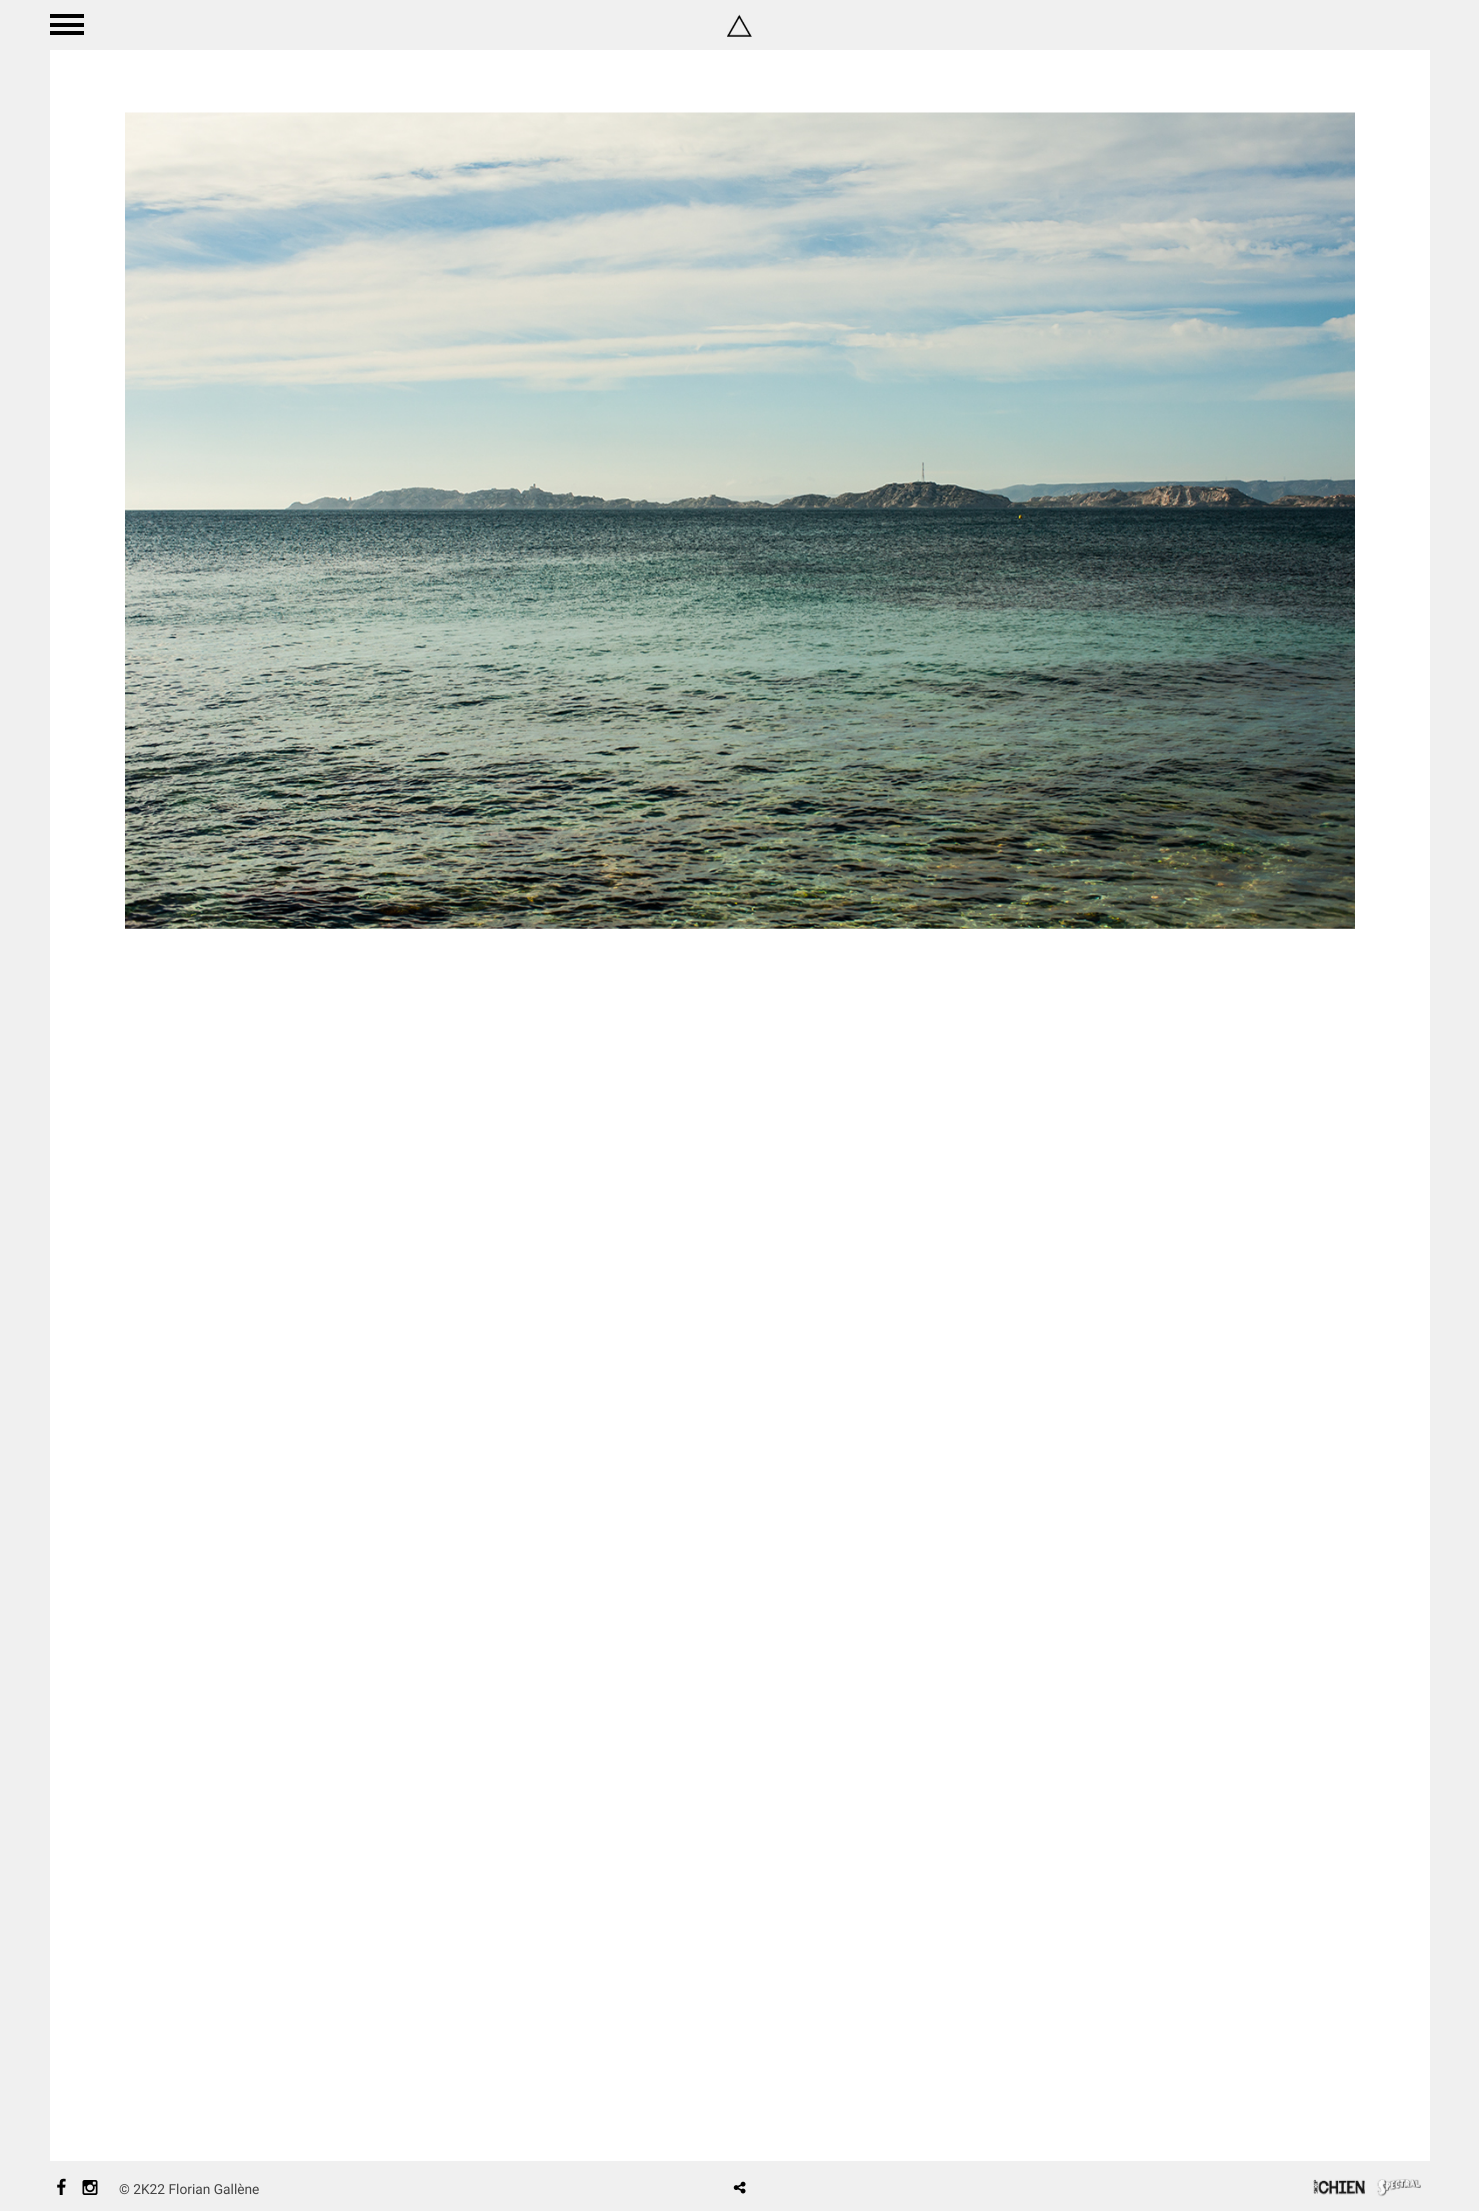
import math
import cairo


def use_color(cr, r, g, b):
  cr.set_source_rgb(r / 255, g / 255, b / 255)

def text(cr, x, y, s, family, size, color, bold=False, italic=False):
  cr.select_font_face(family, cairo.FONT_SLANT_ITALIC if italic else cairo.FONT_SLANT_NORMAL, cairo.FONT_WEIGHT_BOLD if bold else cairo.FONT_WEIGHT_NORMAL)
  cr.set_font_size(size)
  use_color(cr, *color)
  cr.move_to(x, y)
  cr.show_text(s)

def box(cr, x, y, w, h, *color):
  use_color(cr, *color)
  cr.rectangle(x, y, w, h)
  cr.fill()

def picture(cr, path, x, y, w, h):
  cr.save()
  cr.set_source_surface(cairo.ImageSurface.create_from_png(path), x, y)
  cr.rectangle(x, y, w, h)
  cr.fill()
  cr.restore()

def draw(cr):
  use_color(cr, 255, 255, 255)
  cr.paint()
  box(cr, 0, 0, 50, 2161, 240, 240, 240)
  box(cr, 50, 0, 1380, 50, 240, 240, 240)
  box(cr, 50, 23, 34, 4, 0, 0, 0)
  box(cr, 50, 14, 34, 4, 0, 0, 0)
  box(cr, 50, 31, 34, 4, 0, 0, 0)
  picture(cr, "img_01.png", 727, 14, 25, 23)
  box(cr, 1430, 0, 49, 2161, 240, 240, 240)
  picture(cr, "img_02.png", 125, 112, 1230, 817)
  box(cr, 0, 2161, 1479, 50, 240, 240, 240)
  picture(cr, "img_03.png", 57, 2178, 9, 17)
  picture(cr, "img_04.png", 82, 2180, 16, 15)
  picture(cr, "img_05.png", 733, 2181, 13, 13)
  picture(cr, "img_06.png", 1313, 2179, 108, 18)
  text(cr, 119, 2194, "© 2K22 Florian Gallène", "Roboto", 13.75, (68, 68, 68))


surface = cairo.ImageSurface(cairo.FORMAT_RGB24, 1479, 2211)
cr = cairo.Context(surface)
options = cairo.FontOptions()
options.set_hint_metrics(cairo.HINT_METRICS_OFF)
options.set_hint_style(cairo.HINT_STYLE_NONE)
cr.set_font_options(options)
cr.set_miter_limit(4)
draw(cr)
surface.write_to_png("out.png")
